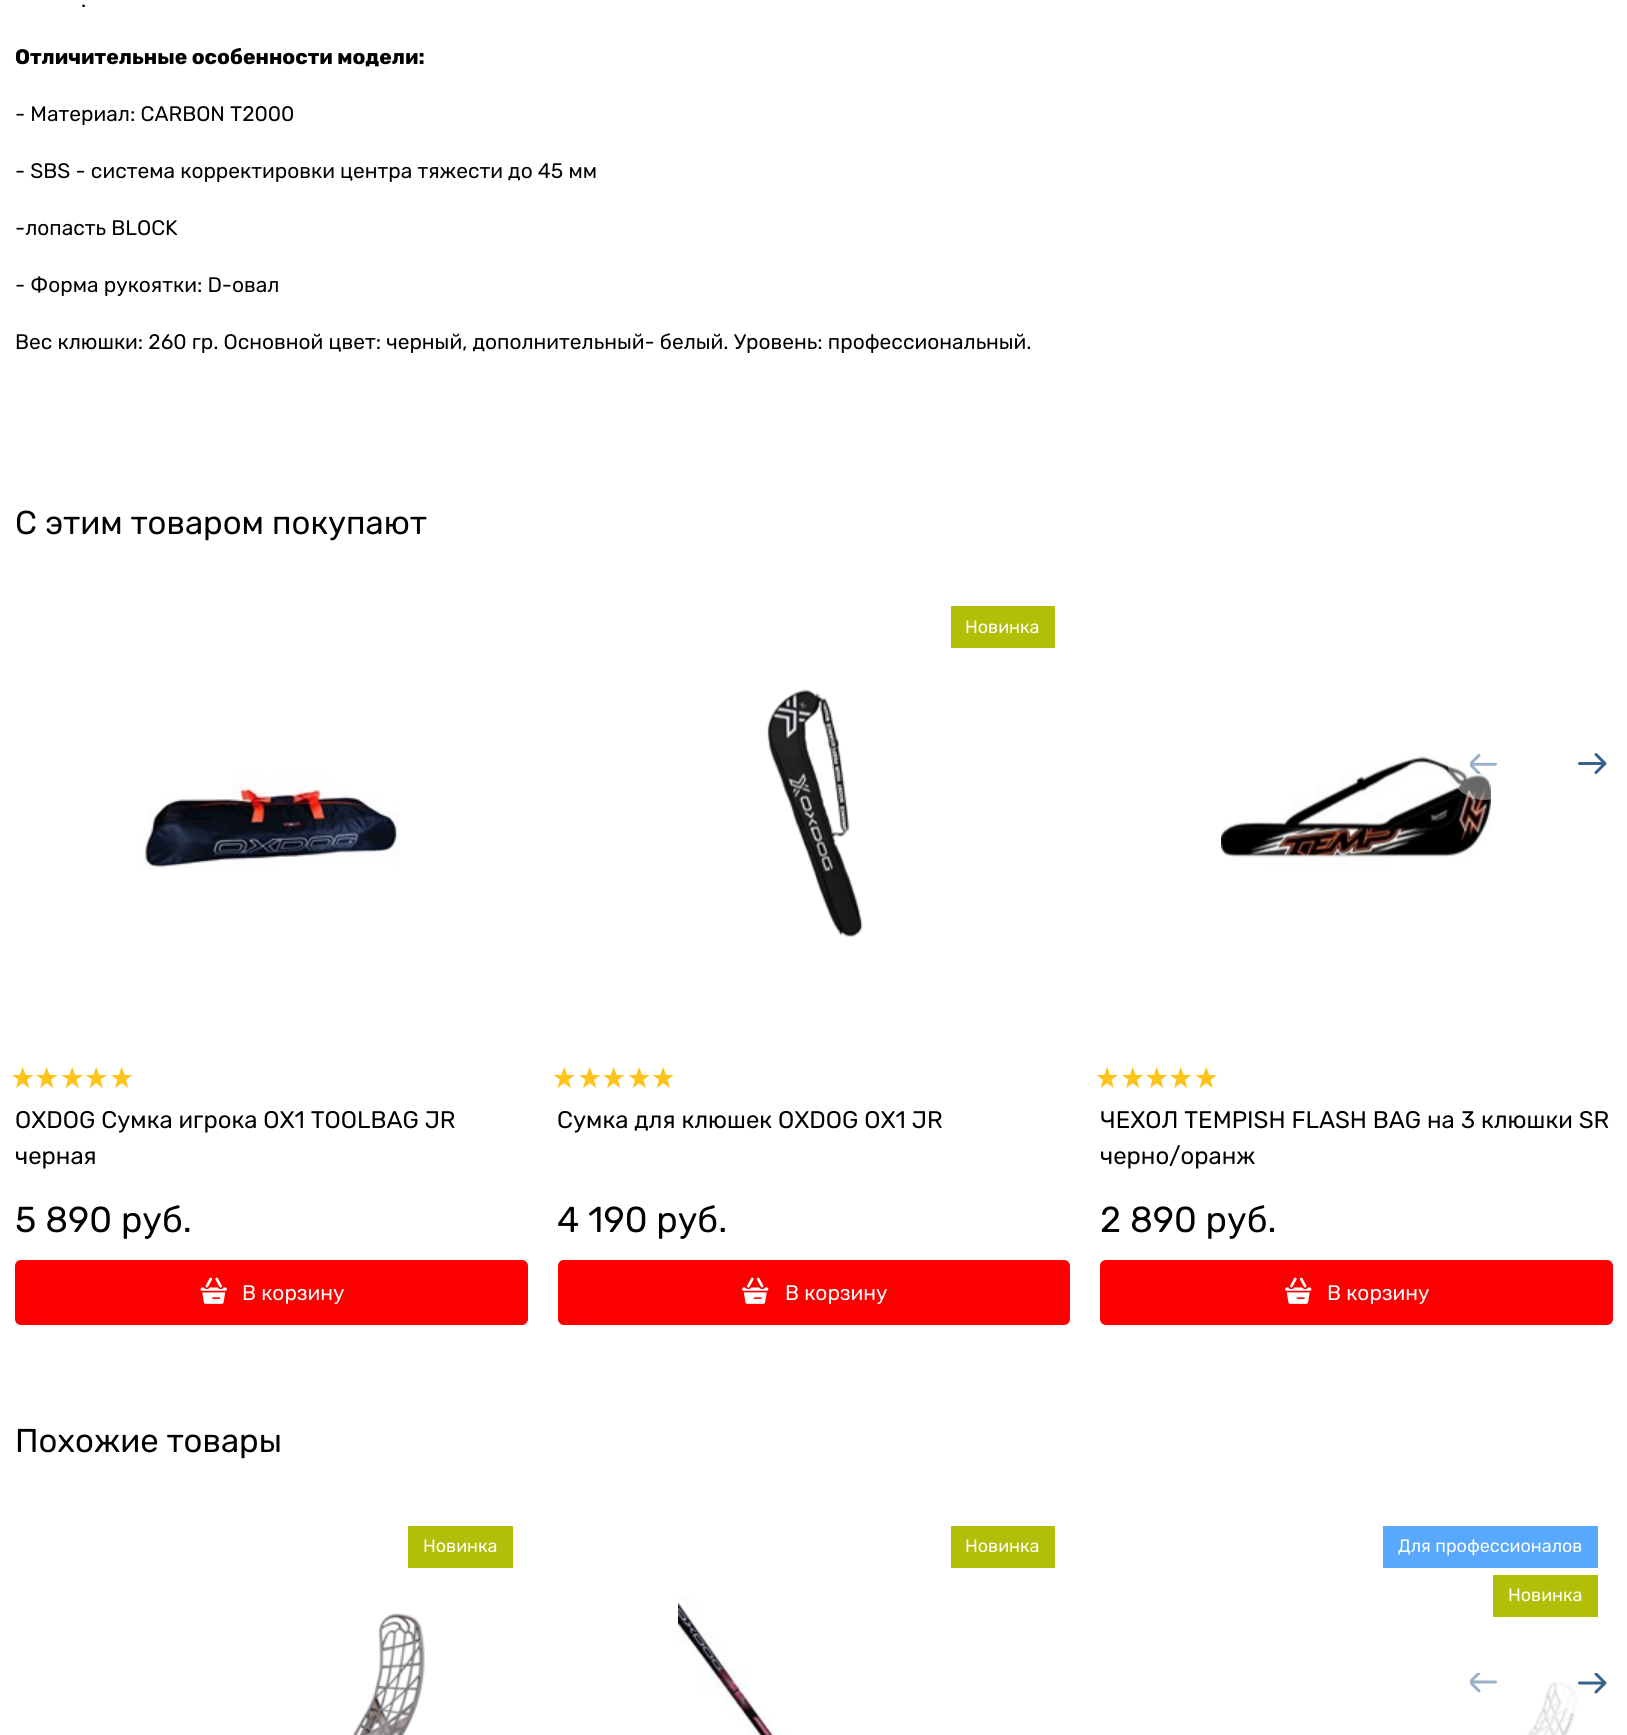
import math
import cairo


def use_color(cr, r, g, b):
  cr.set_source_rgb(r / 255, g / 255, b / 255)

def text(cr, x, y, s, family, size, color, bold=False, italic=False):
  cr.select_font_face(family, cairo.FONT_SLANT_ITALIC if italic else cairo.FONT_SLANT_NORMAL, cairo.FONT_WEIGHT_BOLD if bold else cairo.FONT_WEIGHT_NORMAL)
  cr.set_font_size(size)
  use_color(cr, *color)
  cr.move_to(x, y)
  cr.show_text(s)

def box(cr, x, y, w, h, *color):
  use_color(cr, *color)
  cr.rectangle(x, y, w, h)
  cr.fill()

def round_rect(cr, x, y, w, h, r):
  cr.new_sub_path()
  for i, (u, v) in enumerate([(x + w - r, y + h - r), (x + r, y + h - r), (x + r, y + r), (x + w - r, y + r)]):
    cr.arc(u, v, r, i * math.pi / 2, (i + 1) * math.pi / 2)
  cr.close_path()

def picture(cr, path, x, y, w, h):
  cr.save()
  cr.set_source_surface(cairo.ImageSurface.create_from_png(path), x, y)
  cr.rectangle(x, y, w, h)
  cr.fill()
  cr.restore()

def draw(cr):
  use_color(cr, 255, 255, 255)
  cr.paint()
  picture(cr, "img_01.png", 137, 773, 264, 97)
  picture(cr, "img_02.png", 12, 1067, 22, 21)
  picture(cr, "img_02.png", 36, 1067, 22, 21)
  picture(cr, "img_03.png", 61, 1067, 22, 21)
  picture(cr, "img_03.png", 85, 1067, 22, 21)
  picture(cr, "img_02.png", 111, 1067, 22, 21)
  use_color(cr, 251, 0, 0)
  round_rect(cr, 15, 1260, 513, 65, 6)
  cr.fill()
  picture(cr, "img_04.png", 200, 1277, 27, 27)
  box(cr, 951, 606, 104, 42, 179, 190, 8)
  picture(cr, "img_05.png", 767, 689, 96, 248)
  picture(cr, "img_03.png", 553, 1067, 22, 21)
  picture(cr, "img_02.png", 579, 1067, 22, 21)
  picture(cr, "img_02.png", 603, 1067, 22, 21)
  picture(cr, "img_03.png", 628, 1067, 22, 21)
  picture(cr, "img_03.png", 652, 1067, 22, 21)
  use_color(cr, 251, 0, 0)
  round_rect(cr, 558, 1260, 512, 65, 6)
  cr.fill()
  picture(cr, "img_06.png", 742, 1277, 27, 27)
  picture(cr, "img_07.png", 1221, 753, 270, 118)
  picture(cr, "img_03.png", 1096, 1067, 22, 21)
  picture(cr, "img_02.png", 1122, 1067, 22, 21)
  picture(cr, "img_02.png", 1146, 1067, 22, 21)
  picture(cr, "img_02.png", 1170, 1067, 22, 21)
  picture(cr, "img_03.png", 1195, 1067, 22, 21)
  round_rect(cr, 1100, 1260, 513, 65, 6)
  cr.fill()
  picture(cr, "img_06.png", 1285, 1277, 27, 27)
  cr.set_source_rgba(1, 1, 1, 0.4)
  cr.arc(1484, 764, 36, 0, 2 * math.pi)
  cr.fill()
  picture(cr, "img_08.png", 1470, 753, 27, 21)
  picture(cr, "img_09.png", 1578, 753, 29, 21)
  box(cr, 408, 1526, 105, 42, 179, 190, 8)
  picture(cr, "img_10.png", 352, 1613, 73, 122)
  box(cr, 951, 1526, 104, 42, 179, 190, 8)
  picture(cr, "img_11.png", 678, 1596, 108, 139)
  box(cr, 1383, 1526, 215, 42, 88, 169, 253)
  box(cr, 1493, 1575, 105, 42, 179, 190, 8)
  picture(cr, "img_12.png", 1527, 1681, 51, 54)
  picture(cr, "img_13.png", 1470, 1673, 27, 20)
  cr.set_source_rgba(1, 1, 1, 0.8)
  cr.arc(1592, 1683, 36, 0, 2 * math.pi)
  cr.fill()
  picture(cr, "img_14.png", 1578, 1673, 29, 21)
  text(cr, 81, 7, ".", "Rubik", 21, (0, 0, 0))
  text(cr, 15, 64, "Отличительные особенности модели:", "Rubik", 21, (0, 0, 0), bold=True)
  text(cr, 15, 121, "- Материал: CARBON T2000", "Rubik", 21, (0, 0, 0))
  text(cr, 15, 178, "- SBS - система корректировки центра тяжести до 45 мм", "Rubik", 21, (0, 0, 0))
  text(cr, 15, 235, "-лопасть BLOCK", "Rubik", 21, (0, 0, 0))
  text(cr, 15, 292, "- Форма рукоятки: D-овал", "Rubik", 21, (0, 0, 0))
  text(cr, 15, 349, "Вес клюшки: 260 гр. Основной цвет: черный, дополнительный- белый. Уровень: профессиональный.", "Rubik", 21, (0, 0, 0))
  text(cr, 15, 534, "С этим товаром покупают", "Rubik", 33, (0, 0, 0))
  text(cr, 15, 1128, "OXDOG Сумка игрока OX1 TOOLBAG JR", "Rubik", 24, (0, 0, 0))
  text(cr, 15, 1164, "черная", "Rubik", 24, (0, 0, 0))
  text(cr, 15, 1232, "5 890 руб.", "Rubik", 36, (0, 0, 0))
  text(cr, 242, 1300, "В корзину", "Rubik", 21, (255, 255, 255))
  text(cr, 965, 633, "Новинка", "Rubik", 18, (255, 255, 255))
  text(cr, 557, 1128, "Сумка для клюшек OXDOG OX1 JR", "Rubik", 24, (0, 0, 0))
  text(cr, 557, 1232, "4 190 руб.", "Rubik", 36, (0, 0, 0))
  text(cr, 785, 1300, "В корзину", "Rubik", 21, (255, 255, 255))
  text(cr, 1100, 1128, "ЧЕХОЛ TEMPISH FLASH BAG на 3 клюшки SR", "Rubik", 24, (0, 0, 0))
  text(cr, 1100, 1164, "черно/оранж", "Rubik", 24, (0, 0, 0))
  text(cr, 1100, 1232, "2 890 руб.", "Rubik", 36, (0, 0, 0))
  text(cr, 1327, 1300, "В корзину", "Rubik", 21, (255, 255, 255))
  text(cr, 15, 1452, "Похожие товары", "Rubik", 33, (0, 0, 0))
  text(cr, 423, 1552, "Новинка", "Rubik", 18, (255, 255, 255))
  text(cr, 965, 1552, "Новинка", "Rubik", 18, (255, 255, 255))
  text(cr, 1398, 1552, "Для профессионалов", "Rubik", 18, (255, 255, 255))
  text(cr, 1508, 1601, "Новинка", "Rubik", 18, (255, 255, 255))


surface = cairo.ImageSurface(cairo.FORMAT_RGB24, 1627, 1735)
cr = cairo.Context(surface)
options = cairo.FontOptions()
options.set_hint_metrics(cairo.HINT_METRICS_OFF)
options.set_hint_style(cairo.HINT_STYLE_NONE)
cr.set_font_options(options)
cr.set_miter_limit(4)
draw(cr)
surface.write_to_png("out.png")
